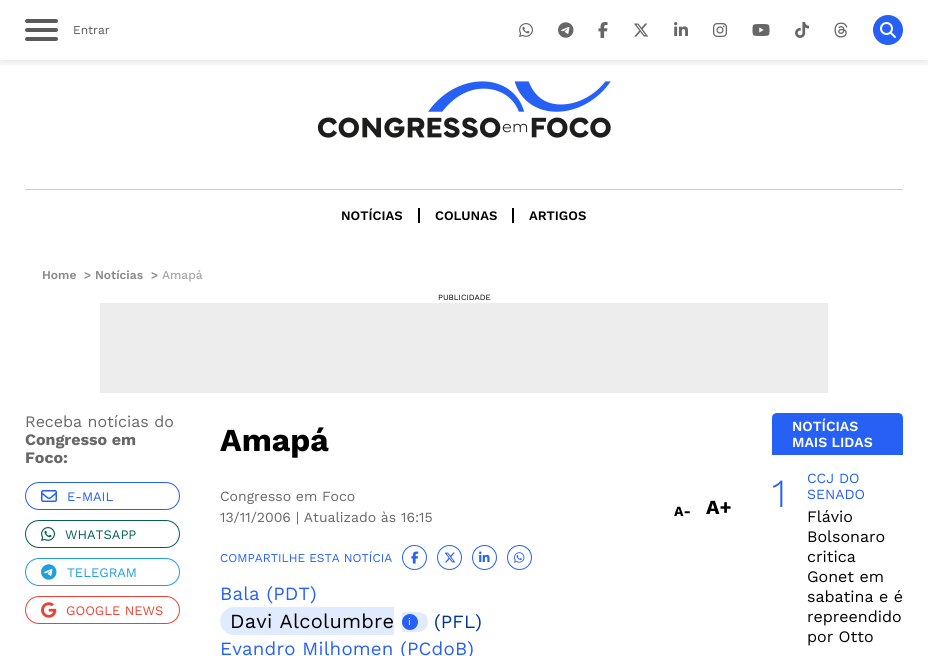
import math
import cairo


def use_color(cr, r, g, b):
  cr.set_source_rgb(r / 255, g / 255, b / 255)

def text(cr, x, y, s, family, size, color, bold=False, italic=False):
  cr.select_font_face(family, cairo.FONT_SLANT_ITALIC if italic else cairo.FONT_SLANT_NORMAL, cairo.FONT_WEIGHT_BOLD if bold else cairo.FONT_WEIGHT_NORMAL)
  cr.set_font_size(size)
  use_color(cr, *color)
  cr.move_to(x, y)
  cr.show_text(s)

def spaced_text(cr, x, y, s, letter, word):
  cr.move_to(x, y)
  for ch in s:
    cr.show_text(ch)
    cr.rel_move_to(letter + word * (ch == ' '), 0)

def box(cr, x, y, w, h, *color):
  use_color(cr, *color)
  cr.rectangle(x, y, w, h)
  cr.fill()

def round_rect(cr, x, y, w, h, r):
  cr.new_sub_path()
  for i, (u, v) in enumerate([(x + w - r, y + h - r), (x + r, y + h - r), (x + r, y + r), (x + w - r, y + r)]):
    cr.arc(u, v, r, i * math.pi / 2, (i + 1) * math.pi / 2)
  cr.close_path()

def shadow(cr, x, y, w, h, r, blur, alpha):
  cr.push_group_with_content(cairo.CONTENT_ALPHA)
  cr.set_operator(cairo.OPERATOR_SOURCE)
  for i in range(15, -16, -2):
    e = blur * i / 6
    if min(w, h) + 2 * e > 0:
      cr.set_source_rgba(0, 0, 0, alpha * math.erfc((i - 1) / 8.5) / 2)
      round_rect(cr, x - e, y - e, w + 2 * e, h + 2 * e, max(0, min(r + e + blur * .6, min(w, h) / 2 + e)))
      cr.fill()
  cr.mask(cr.pop_group())

def picture(cr, path, x, y, w, h):
  cr.save()
  cr.set_source_surface(cairo.ImageSurface.create_from_png(path), x, y)
  cr.rectangle(x, y, w, h)
  cr.fill()
  cr.restore()

def draw(cr):
  use_color(cr, 255, 255, 255)
  cr.paint()
  cr.save()
  cr.rectangle(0, 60, 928, 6)
  cr.clip()
  use_color(cr, 122, 122, 122)
  shadow(cr, 0, 3, 928, 60, 0, 3, 0.16)
  cr.restore()
  use_color(cr, 90, 90, 90)
  round_rect(cr, 25, 19, 33, 4, 2)
  cr.fill()
  round_rect(cr, 25, 28, 33, 4, 2)
  cr.fill()
  round_rect(cr, 25, 37, 33, 4, 2)
  cr.fill()
  picture(cr, "img_01.png", 519, 23, 14, 14)
  picture(cr, "img_02.png", 558, 22, 16, 16)
  picture(cr, "img_03.png", 598, 22, 10, 16)
  picture(cr, "img_04.png", 634, 23, 15, 14)
  picture(cr, "img_05.png", 674, 22, 14, 14)
  picture(cr, "img_06.png", 713, 23, 14, 14)
  picture(cr, "img_07.png", 752, 24, 18, 12)
  picture(cr, "img_08.png", 795, 22, 14, 16)
  picture(cr, "img_09.png", 834, 22, 14, 16)
  use_color(cr, 38, 96, 245)
  cr.arc(888, 30, 15, 0, 2 * math.pi)
  cr.fill()
  picture(cr, "img_10.png", 880, 22, 16, 16)
  picture(cr, "img_11.png", 317, 81, 294, 57)
  box(cr, 25, 189, 878, 1, 206, 206, 206)
  box(cr, 418, 208, 2, 15, 0, 0, 0)
  box(cr, 512, 208, 2, 15, 0, 0, 0)
  box(cr, 100, 303, 728, 90, 237, 237, 237)
  round_rect(cr, 25.5, 482.5, 154, 27, 13.5)
  use_color(cr, 38, 96, 245)
  cr.set_line_width(1)
  cr.stroke()
  picture(cr, "img_12.png", 41, 490, 16, 12)
  round_rect(cr, 25.5, 520.5, 154, 27, 13.5)
  use_color(cr, 7, 94, 84)
  cr.stroke()
  picture(cr, "img_13.png", 41, 527, 14, 14)
  round_rect(cr, 25.5, 558.5, 154, 27, 13.5)
  use_color(cr, 34, 158, 217)
  cr.stroke()
  picture(cr, "img_14.png", 41, 564, 16, 16)
  round_rect(cr, 25.5, 596.5, 154, 27, 13.5)
  use_color(cr, 234, 67, 53)
  cr.stroke()
  picture(cr, "img_15.png", 41, 602, 16, 16)
  cr.arc(414.5, 557.5, 12, 0, 2 * math.pi)
  use_color(cr, 38, 96, 245)
  cr.stroke()
  picture(cr, "img_16.png", 411, 551, 8, 13)
  cr.arc(449.5, 557.5, 12, 0, 2 * math.pi)
  cr.stroke()
  picture(cr, "img_17.png", 444, 552, 12, 11)
  cr.arc(484.5, 557.5, 12, 0, 2 * math.pi)
  cr.stroke()
  picture(cr, "img_18.png", 479, 551, 11, 11)
  cr.arc(519.5, 557.5, 12, 0, 2 * math.pi)
  cr.stroke()
  picture(cr, "img_19.png", 514, 552, 11, 11)
  use_color(cr, 225, 235, 255)
  cr.new_path()
  cr.move_to(234, 607)
  cr.line_to(394, 607)
  cr.line_to(394, 635)
  cr.line_to(234, 635)
  cr.curve_to(226.5, 635, 220, 628.5, 220, 621)
  cr.curve_to(220, 613.5, 226.5, 607, 234, 607)
  cr.close_path()
  cr.fill()
  cr.new_path()
  cr.move_to(402, 612)
  cr.line_to(418, 612)
  cr.curve_to(423.5, 612, 428, 616.5, 428, 622)
  cr.curve_to(428, 627.5, 423.5, 632, 418, 632)
  cr.line_to(402, 632)
  cr.close_path()
  cr.fill()
  use_color(cr, 38, 96, 245)
  cr.arc(410, 622, 8, 0, 2 * math.pi)
  cr.fill()
  cr.new_path()
  cr.move_to(777, 413)
  cr.line_to(898, 413)
  cr.curve_to(901, 413, 903, 415, 903, 418)
  cr.line_to(903, 455)
  cr.line_to(772, 455)
  cr.line_to(772, 418)
  cr.curve_to(772, 415, 774, 413, 777, 413)
  cr.close_path()
  cr.fill()
  text(cr, 73, 34, "Entrar", "Work Sans", 12, (90, 90, 90))
  text(cr, 341, 220, "NOTÍCIAS", "Work Sans SemiBold", 13, (0, 0, 0))
  text(cr, 435, 220, "COLUNAS", "Work Sans SemiBold", 13, (0, 0, 0))
  text(cr, 529, 220, "ARTIGOS", "Work Sans SemiBold", 13, (0, 0, 0))
  text(cr, 42, 279, "Home", "Work Sans SemiBold", 12, (138, 138, 138))
  text(cr, 84, 279, ">", "Work Sans SemiBold", 12, (138, 138, 138))
  text(cr, 95, 279, "Notícias", "Work Sans SemiBold", 12, (138, 138, 138))
  text(cr, 151, 279, ">", "Work Sans SemiBold", 12, (138, 138, 138))
  text(cr, 162, 279, "Amapá", "Work Sans Medium", 12, (167, 167, 167))
  text(cr, 438, 300, "PUBLICIDADE", "Work Sans", 8, (0, 0, 0))
  text(cr, 25, 427, "Receba notícias do", "Work Sans", 16, (103, 103, 103))
  text(cr, 25, 445, "Congresso em", "Work Sans", 16, (103, 103, 103), bold=True)
  text(cr, 25, 463, "Foco:", "Work Sans", 16, (103, 103, 103), bold=True)
  text(cr, 67, 501, "E-MAIL", "Work Sans", 13, (38, 96, 245))
  text(cr, 65, 539, "WHATSAPP", "Work Sans", 13, (7, 94, 84))
  text(cr, 67, 577, "TELEGRAM", "Work Sans", 13, (34, 158, 217))
  text(cr, 66, 615, "GOOGLE NEWS", "Work Sans", 13, (234, 67, 53))
  text(cr, 220, 451, "Amapá", "Work Sans", 32, (0, 0, 0), bold=True)
  text(cr, 220, 501, "Congresso em Foco", "Work Sans", 14, (103, 103, 103))
  text(cr, 220, 522, "13/11/2006 | Atualizado às 16:15", "Work Sans", 14, (103, 103, 103))
  text(cr, 674, 516, "A-", "Work Sans", 14, (0, 0, 0), bold=True)
  text(cr, 706, 514, "A+", "Work Sans", 20, (0, 0, 0), bold=True)
  text(cr, 220, 562, "COMPARTILHE ESTA NOTÍCIA", "Work Sans", 12, (38, 96, 245))
  cr.set_font_size(18.7)
  spaced_text(cr, 220, 600, "Bala (PDT)", 0.2, 0)
  cr.set_font_size(20)
  use_color(cr, 0, 0, 0)
  spaced_text(cr, 230, 628, "Davi Alcolumbre", 0.25, 0)
  cr.set_font_size(10)
  use_color(cr, 255, 255, 255)
  spaced_text(cr, 408, 625, "i", 0.25, 0)
  cr.set_font_size(18.7)
  use_color(cr, 0, 51, 153)
  spaced_text(cr, 434, 628, "(PFL)", 0.2, 0)
  use_color(cr, 38, 96, 245)
  spaced_text(cr, 220, 655, "Evandro Milhomen (PCdoB)", 0.2, 0)
  text(cr, 792, 431, "NOTÍCIAS", "Work Sans SemiBold", 14, (255, 255, 255))
  text(cr, 792, 447, "MAIS LIDAS", "Work Sans SemiBold", 14, (255, 255, 255))
  text(cr, 772, 507, "1", "Work Sans Light", 40, (38, 96, 245))
  text(cr, 807, 483, "CCJ DO", "Work Sans", 14, (38, 96, 245))
  text(cr, 807, 499, "SENADO", "Work Sans", 14, (38, 96, 245))
  text(cr, 807, 522, "Flávio", "Work Sans", 16, (0, 0, 0))
  text(cr, 807, 542, "Bolsonaro", "Work Sans", 16, (0, 0, 0))
  text(cr, 807, 562, "critica", "Work Sans", 16, (0, 0, 0))
  text(cr, 807, 582, "Gonet em", "Work Sans", 16, (0, 0, 0))
  text(cr, 807, 602, "sabatina e é", "Work Sans", 16, (0, 0, 0))
  text(cr, 807, 622, "repreendido", "Work Sans", 16, (0, 0, 0))
  text(cr, 807, 642, "por Otto", "Work Sans", 16, (0, 0, 0))


surface = cairo.ImageSurface(cairo.FORMAT_RGB24, 928, 656)
cr = cairo.Context(surface)
options = cairo.FontOptions()
options.set_hint_metrics(cairo.HINT_METRICS_OFF)
options.set_hint_style(cairo.HINT_STYLE_NONE)
cr.set_font_options(options)
cr.set_miter_limit(4)
draw(cr)
surface.write_to_png("out.png")
